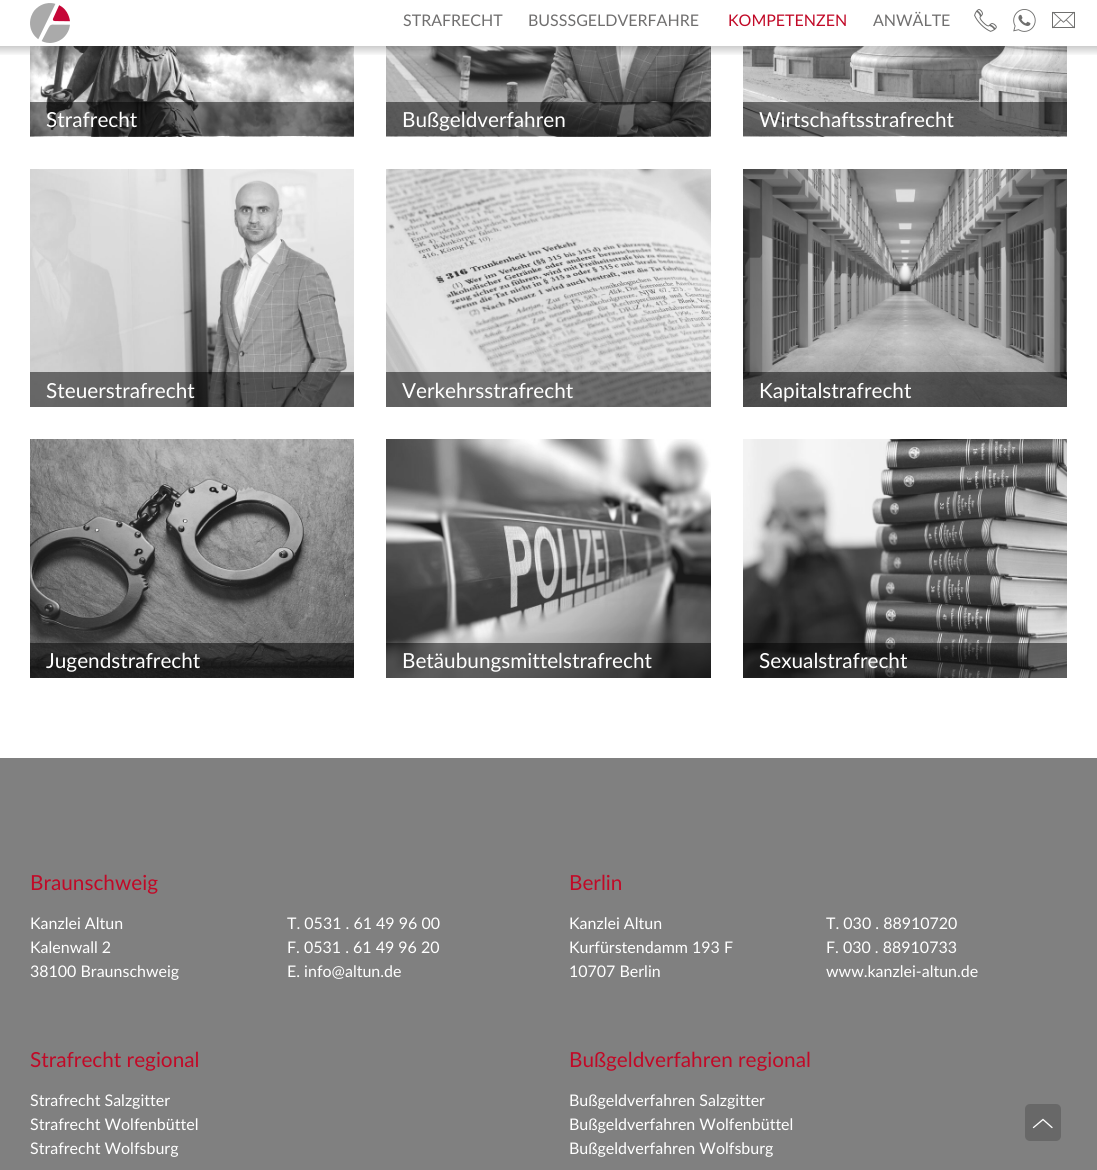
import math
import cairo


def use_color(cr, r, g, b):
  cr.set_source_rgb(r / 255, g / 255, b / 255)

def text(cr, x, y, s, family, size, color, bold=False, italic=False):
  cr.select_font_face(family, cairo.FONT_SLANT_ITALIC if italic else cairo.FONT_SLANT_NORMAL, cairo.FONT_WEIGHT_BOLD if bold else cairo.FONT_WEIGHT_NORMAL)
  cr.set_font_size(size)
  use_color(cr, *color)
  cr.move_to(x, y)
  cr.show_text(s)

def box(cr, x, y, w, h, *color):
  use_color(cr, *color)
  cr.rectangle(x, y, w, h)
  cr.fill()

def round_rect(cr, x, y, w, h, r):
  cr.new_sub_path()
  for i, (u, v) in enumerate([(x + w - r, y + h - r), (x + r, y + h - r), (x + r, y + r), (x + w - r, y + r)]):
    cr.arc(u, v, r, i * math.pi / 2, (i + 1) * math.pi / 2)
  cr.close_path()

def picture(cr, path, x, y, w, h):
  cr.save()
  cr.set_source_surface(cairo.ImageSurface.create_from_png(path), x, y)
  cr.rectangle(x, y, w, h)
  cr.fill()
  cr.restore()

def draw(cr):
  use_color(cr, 255, 255, 255)
  cr.paint()
  picture(cr, "img_01.png", 30, 3, 40, 40)
  picture(cr, "img_02.png", 974, 9, 23, 23)
  picture(cr, "img_03.png", 1013, 9, 23, 23)
  picture(cr, "img_04.png", 1052, 11, 23, 18)
  picture(cr, "img_05.png", 30, 46, 324, 91)
  picture(cr, "img_06.png", 386, 46, 325, 91)
  picture(cr, "img_07.png", 743, 46, 324, 91)
  gradient = cairo.LinearGradient(549, 46, 549, 56)
  gradient.add_color_stop_rgba(0, 0, 0, 0, 0.2)
  gradient.add_color_stop_rgba(1, 0, 0, 0, 0)
  cr.set_source(gradient)
  cr.rectangle(0, 46, 1097, 9)
  cr.fill()
  cr.set_source_rgba(0, 0, 0, 0.5)
  cr.rectangle(30, 102, 324, 34)
  cr.fill()
  cr.rectangle(386, 102, 325, 34)
  cr.fill()
  cr.rectangle(743, 102, 324, 34)
  cr.fill()
  picture(cr, "img_08.png", 30, 169, 324, 238)
  cr.rectangle(30, 372, 324, 35)
  cr.fill()
  picture(cr, "img_09.png", 386, 169, 325, 238)
  cr.rectangle(386, 372, 325, 35)
  cr.fill()
  picture(cr, "img_10.png", 743, 169, 324, 238)
  cr.rectangle(743, 372, 324, 35)
  cr.fill()
  picture(cr, "img_11.png", 30, 439, 324, 239)
  cr.rectangle(30, 643, 324, 35)
  cr.fill()
  picture(cr, "img_12.png", 386, 439, 325, 239)
  cr.rectangle(386, 643, 325, 35)
  cr.fill()
  picture(cr, "img_13.png", 743, 439, 324, 239)
  cr.rectangle(743, 643, 324, 35)
  cr.fill()
  box(cr, 0, 758, 1097, 412, 128, 128, 128)
  use_color(cr, 104, 104, 104)
  round_rect(cr, 1025, 1104, 36, 37, 5)
  cr.fill()
  cr.new_path()
  cr.move_to(1033.5, 1127.5)
  cr.line_to(1043, 1119.5)
  cr.line_to(1052, 1127.5)
  use_color(cr, 255, 255, 255)
  cr.set_line_width(1.3)
  cr.set_line_cap(cairo.LINE_CAP_ROUND)
  cr.stroke()
  text(cr, 403, 26, "STRAFRECHT", "Lato", 16, (112, 111, 111))
  text(cr, 528, 26, "BUSSSGELDVERFAHRE", "Lato", 16, (112, 111, 111))
  text(cr, 728, 26, "KOMPETENZEN", "Lato", 16, (193, 9, 39))
  text(cr, 873, 26, "ANWÄLTE", "Lato", 16, (112, 111, 111))
  text(cr, 46, 127, "Strafrecht", "Lato", 20.75, (255, 255, 255))
  text(cr, 402, 127, "Bußgeldverfahren", "Lato", 20.75, (255, 255, 255))
  text(cr, 759, 127, "Wirtschaftsstrafrecht", "Lato", 20.75, (255, 255, 255))
  text(cr, 46, 398, "Steuerstrafrecht", "Lato", 20.75, (255, 255, 255))
  text(cr, 402, 398, "Verkehrsstrafrecht", "Lato", 20.75, (255, 255, 255))
  text(cr, 759, 398, "Kapitalstrafrecht", "Lato", 20.75, (255, 255, 255))
  text(cr, 46, 668, "Jugendstrafrecht", "Lato", 20.75, (255, 255, 255))
  text(cr, 402, 668, "Betäubungsmittelstrafrecht", "Lato", 20.75, (255, 255, 255))
  text(cr, 759, 668, "Sexualstrafrecht", "Lato", 20.75, (255, 255, 255))
  text(cr, 30, 890, "Braunschweig", "Lato", 20.75, (193, 9, 39))
  text(cr, 30, 929, "Kanzlei Altun", "Lato", 16, (255, 255, 255))
  text(cr, 30, 953, "Kalenwall 2", "Lato", 16, (255, 255, 255))
  text(cr, 30, 977, "38100 Braunschweig", "Lato", 16, (255, 255, 255))
  text(cr, 287, 929, "T. 0531 . 61 49 96 00", "Lato", 16, (255, 255, 255))
  text(cr, 287, 953, "F. 0531 . 61 49 96 20", "Lato", 16, (255, 255, 255))
  text(cr, 287, 977, "E. info@altun.de", "Lato", 16, (255, 255, 255))
  text(cr, 569, 890, "Berlin", "Lato", 20.75, (193, 9, 39))
  text(cr, 569, 929, "Kanzlei Altun", "Lato", 16, (255, 255, 255))
  text(cr, 569, 953, "Kurfürstendamm 193 F", "Lato", 16, (255, 255, 255))
  text(cr, 569, 977, "10707 Berlin", "Lato", 16, (255, 255, 255))
  text(cr, 826, 929, "T. 030 . 88910720", "Lato", 16, (255, 255, 255))
  text(cr, 826, 953, "F. 030 . 88910733", "Lato", 16, (255, 255, 255))
  text(cr, 826, 977, "www.kanzlei-altun.de", "Lato", 16, (255, 255, 255))
  text(cr, 30, 1067, "Strafrecht regional", "Lato", 20.75, (193, 9, 39))
  text(cr, 30, 1106, "Strafrecht Salzgitter", "Lato", 16, (255, 255, 255))
  text(cr, 30, 1130, "Strafrecht Wolfenbüttel", "Lato", 16, (255, 255, 255))
  text(cr, 30, 1154, "Strafrecht Wolfsburg", "Lato", 16, (255, 255, 255))
  text(cr, 569, 1067, "Bußgeldverfahren regional", "Lato", 20.75, (193, 9, 39))
  text(cr, 569, 1106, "Bußgeldverfahren Salzgitter", "Lato", 16, (255, 255, 255))
  text(cr, 569, 1130, "Bußgeldverfahren Wolfenbüttel", "Lato", 16, (255, 255, 255))
  text(cr, 569, 1154, "Bußgeldverfahren Wolfsburg", "Lato", 16, (255, 255, 255))


surface = cairo.ImageSurface(cairo.FORMAT_RGB24, 1097, 1170)
cr = cairo.Context(surface)
options = cairo.FontOptions()
options.set_hint_metrics(cairo.HINT_METRICS_OFF)
options.set_hint_style(cairo.HINT_STYLE_NONE)
cr.set_font_options(options)
cr.set_miter_limit(4)
draw(cr)
surface.write_to_png("out.png")
